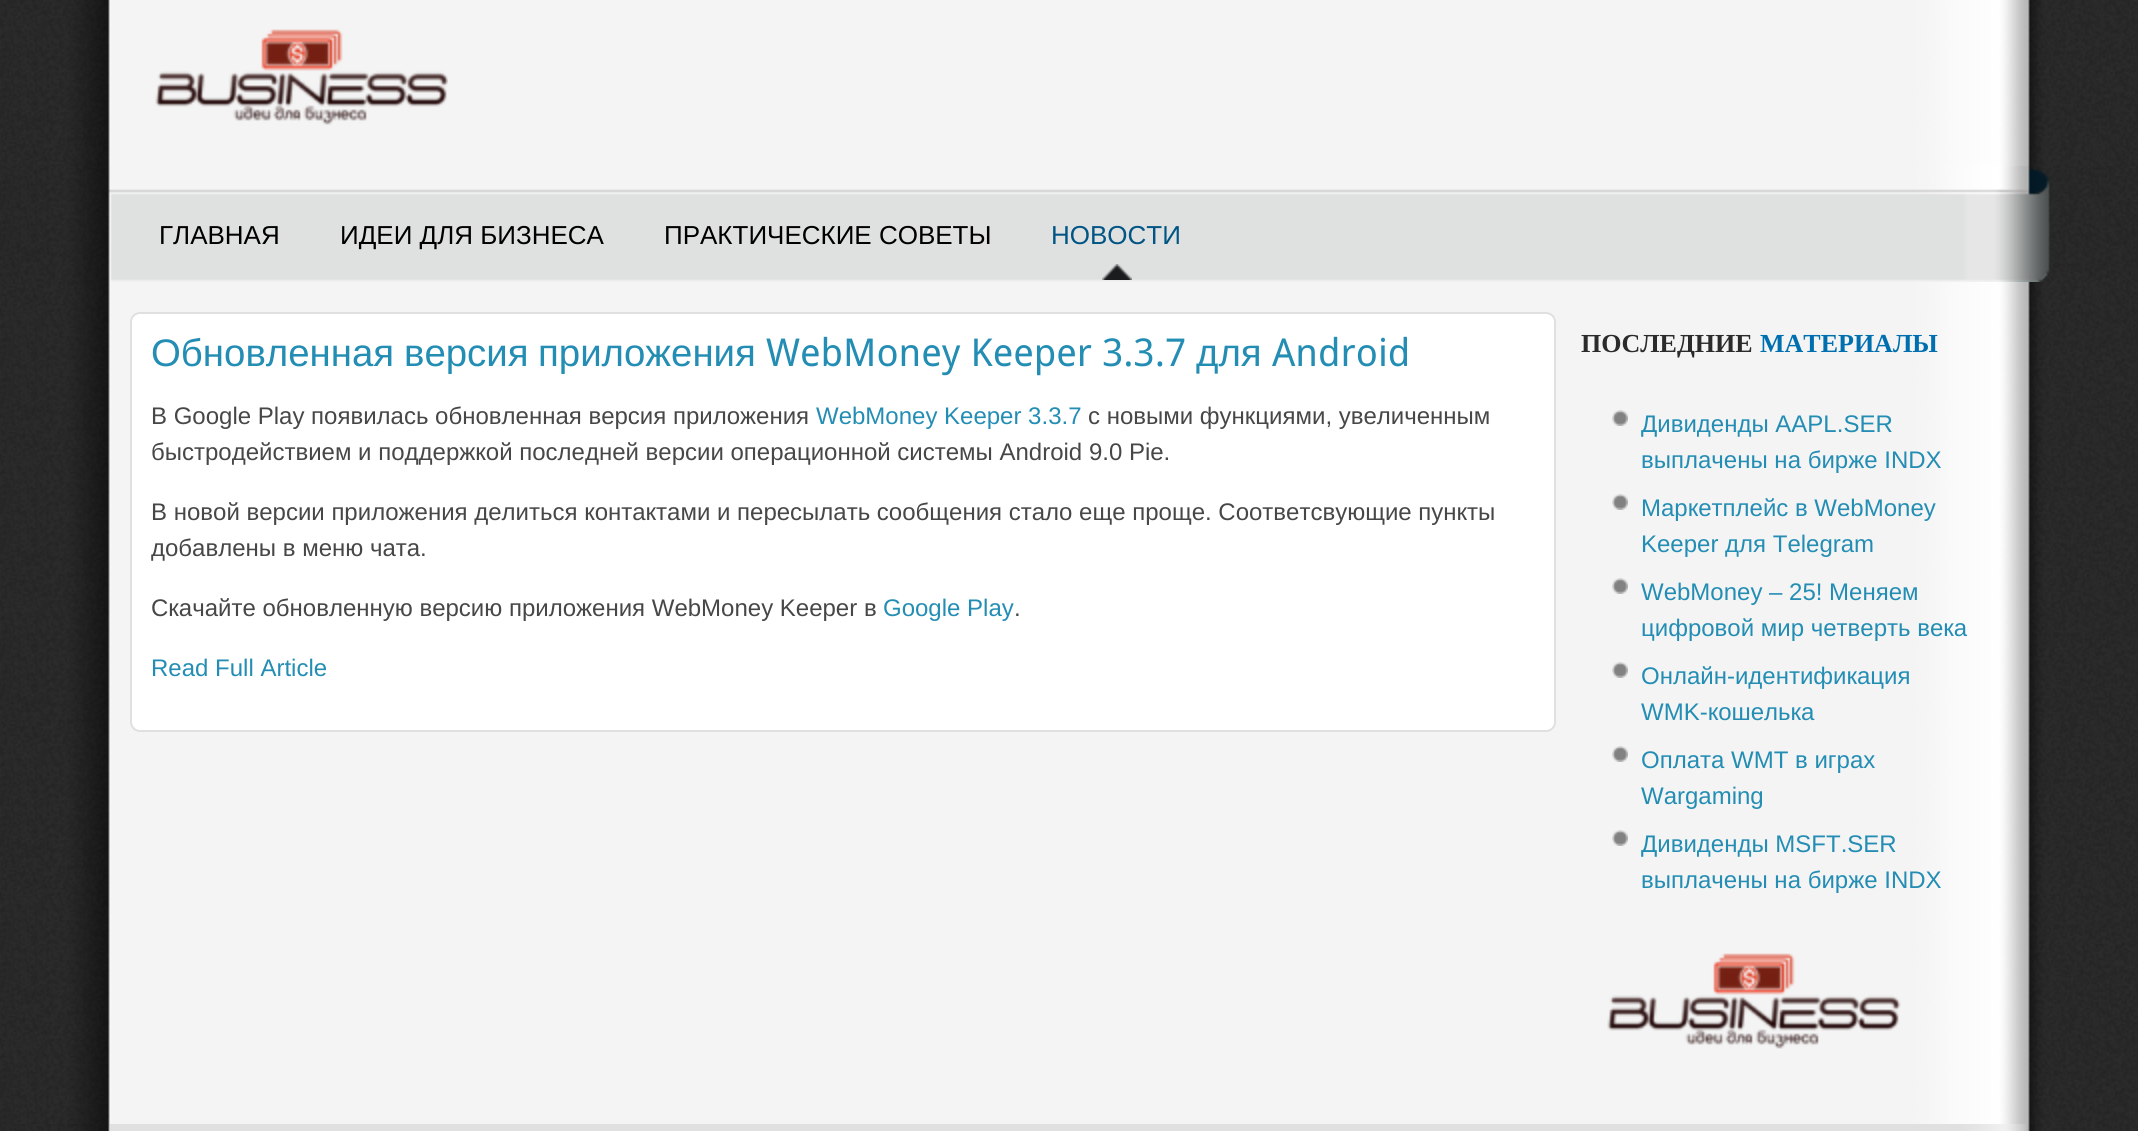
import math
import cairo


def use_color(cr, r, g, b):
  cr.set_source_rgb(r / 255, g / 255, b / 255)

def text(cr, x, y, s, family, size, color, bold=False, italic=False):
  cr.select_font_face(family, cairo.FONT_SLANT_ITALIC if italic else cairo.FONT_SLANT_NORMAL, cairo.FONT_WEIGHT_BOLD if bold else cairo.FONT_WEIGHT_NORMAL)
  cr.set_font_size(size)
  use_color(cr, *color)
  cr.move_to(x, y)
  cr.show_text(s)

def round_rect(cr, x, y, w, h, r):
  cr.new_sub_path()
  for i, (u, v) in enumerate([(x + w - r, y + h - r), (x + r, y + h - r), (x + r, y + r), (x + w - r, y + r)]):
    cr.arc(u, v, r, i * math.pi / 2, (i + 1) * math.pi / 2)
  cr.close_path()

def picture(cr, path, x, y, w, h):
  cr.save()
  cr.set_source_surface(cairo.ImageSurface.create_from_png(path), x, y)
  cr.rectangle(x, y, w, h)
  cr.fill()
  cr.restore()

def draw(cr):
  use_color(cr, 255, 255, 255)
  cr.paint()
  picture(cr, "img_01.png", 0, 266, 2138, 865)
  picture(cr, "img_02.png", 0, 0, 2138, 166)
  picture(cr, "img_03.png", 155, 29, 293, 96)
  picture(cr, "img_04.png", 0, 166, 2138, 116)
  picture(cr, "img_05.png", 1102, 264, 30, 16)
  picture(cr, "img_06.png", 0, 282, 2138, 842)
  use_color(cr, 255, 255, 255)
  round_rect(cr, 131, 313, 1424, 418, 9)
  cr.fill_preserve()
  use_color(cr, 224, 224, 224)
  cr.stroke()
  picture(cr, "img_07.png", 1612, 410, 16, 16)
  picture(cr, "img_07.png", 1612, 494, 16, 16)
  picture(cr, "img_07.png", 1612, 578, 16, 16)
  picture(cr, "img_07.png", 1612, 662, 16, 16)
  picture(cr, "img_07.png", 1612, 746, 16, 16)
  picture(cr, "img_07.png", 1612, 830, 16, 16)
  picture(cr, "img_08.png", 1607, 953, 294, 96)
  picture(cr, "img_09.png", 3, 1124, 2126, 7)
  picture(cr, "img_10.png", 110, 1124, 1916, 7)
  text(cr, 159, 244, "ГЛАВНАЯ", "Liberation Sans", 26, (0, 0, 0))
  text(cr, 340, 244, "ИДЕИ ДЛЯ БИЗНЕСА", "Liberation Sans", 26, (0, 0, 0))
  text(cr, 664, 244, "ПРАКТИЧЕСКИЕ СОВЕТЫ", "Liberation Sans", 26, (0, 0, 0))
  text(cr, 1051, 244, "НОВОСТИ", "Liberation Sans", 26, (0, 85, 133))
  text(cr, 151, 366, "Обновленная", "Liberation Sans", 38.4, (35, 141, 180))
  text(cr, 404, 366, "версия", "Liberation Sans", 38.4, (35, 141, 180))
  text(cr, 538, 366, "приложения", "Liberation Sans", 38.4, (35, 141, 180))
  text(cr, 766, 366, "WebMoney Keeper 3.3.7", "Droid Sans", 38.4, (35, 141, 180))
  text(cr, 1196, 366, "для", "Liberation Sans", 38.4, (35, 141, 180))
  text(cr, 1272, 366, "Android", "Droid Sans", 38.4, (35, 141, 180))
  text(cr, 151, 424, "В Google Play появилась обновленная версия приложения", "Liberation Sans", 24, (71, 71, 71))
  text(cr, 816, 424, "WebMoney Keeper 3.3.7", "Liberation Sans", 24, (35, 141, 180))
  text(cr, 1088, 424, "c новыми функциями, увеличенным", "Liberation Sans", 24, (71, 71, 71))
  text(cr, 151, 460, "быстродействием и поддержкой последней версии операционной системы Android 9.0 Pie.", "Liberation Sans", 24, (71, 71, 71))
  text(cr, 151, 520, "В новой версии приложения делиться контактами и пересылать сообщения стало еще проще. Соответсвующие пункты", "Liberation Sans", 24, (71, 71, 71))
  text(cr, 151, 556, "добавлены в меню чата.", "Liberation Sans", 24, (71, 71, 71))
  text(cr, 151, 616, "Скачайте обновленную версию приложения WebMoney Keeper в", "Liberation Sans", 24, (71, 71, 71))
  text(cr, 883, 616, "Google Play", "Liberation Sans", 24, (35, 141, 180))
  text(cr, 1014, 616, ".", "Liberation Sans", 24, (71, 71, 71))
  text(cr, 151, 676, "Read Full Article", "Liberation Sans", 24, (35, 141, 180))
  text(cr, 1581, 352, "ПОСЛЕДНИЕ", "Liberation Serif", 26, (43, 43, 43), bold=True)
  text(cr, 1760, 352, "МАТЕРИАЛЫ", "Liberation Serif", 26, (0, 111, 176), bold=True)
  text(cr, 1641, 432, "Дивиденды AAPL.SER", "Liberation Sans", 24, (35, 141, 180))
  text(cr, 1641, 468, "выплачены на бирже INDX", "Liberation Sans", 24, (35, 141, 180))
  text(cr, 1641, 516, "Маркетплейс в WebMoney", "Liberation Sans", 24, (35, 141, 180))
  text(cr, 1641, 552, "Keeper для Telegram", "Liberation Sans", 24, (35, 141, 180))
  text(cr, 1641, 600, "WebMoney – 25! Меняем", "Liberation Sans", 24, (35, 141, 180))
  text(cr, 1641, 636, "цифровой мир четверть века", "Liberation Sans", 24, (35, 141, 180))
  text(cr, 1641, 684, "Онлайн-идентификация", "Liberation Sans", 24, (35, 141, 180))
  text(cr, 1641, 720, "WMK-кошелька", "Liberation Sans", 24, (35, 141, 180))
  text(cr, 1641, 768, "Оплата WMT в играх", "Liberation Sans", 24, (35, 141, 180))
  text(cr, 1641, 804, "Wargaming", "Liberation Sans", 24, (35, 141, 180))
  text(cr, 1641, 852, "Дивиденды MSFT.SER", "Liberation Sans", 24, (35, 141, 180))
  text(cr, 1641, 888, "выплачены на бирже INDX", "Liberation Sans", 24, (35, 141, 180))


surface = cairo.ImageSurface(cairo.FORMAT_RGB24, 2138, 1131)
cr = cairo.Context(surface)
options = cairo.FontOptions()
options.set_hint_metrics(cairo.HINT_METRICS_OFF)
options.set_hint_style(cairo.HINT_STYLE_NONE)
cr.set_font_options(options)
cr.set_miter_limit(4)
draw(cr)
surface.write_to_png("out.png")
